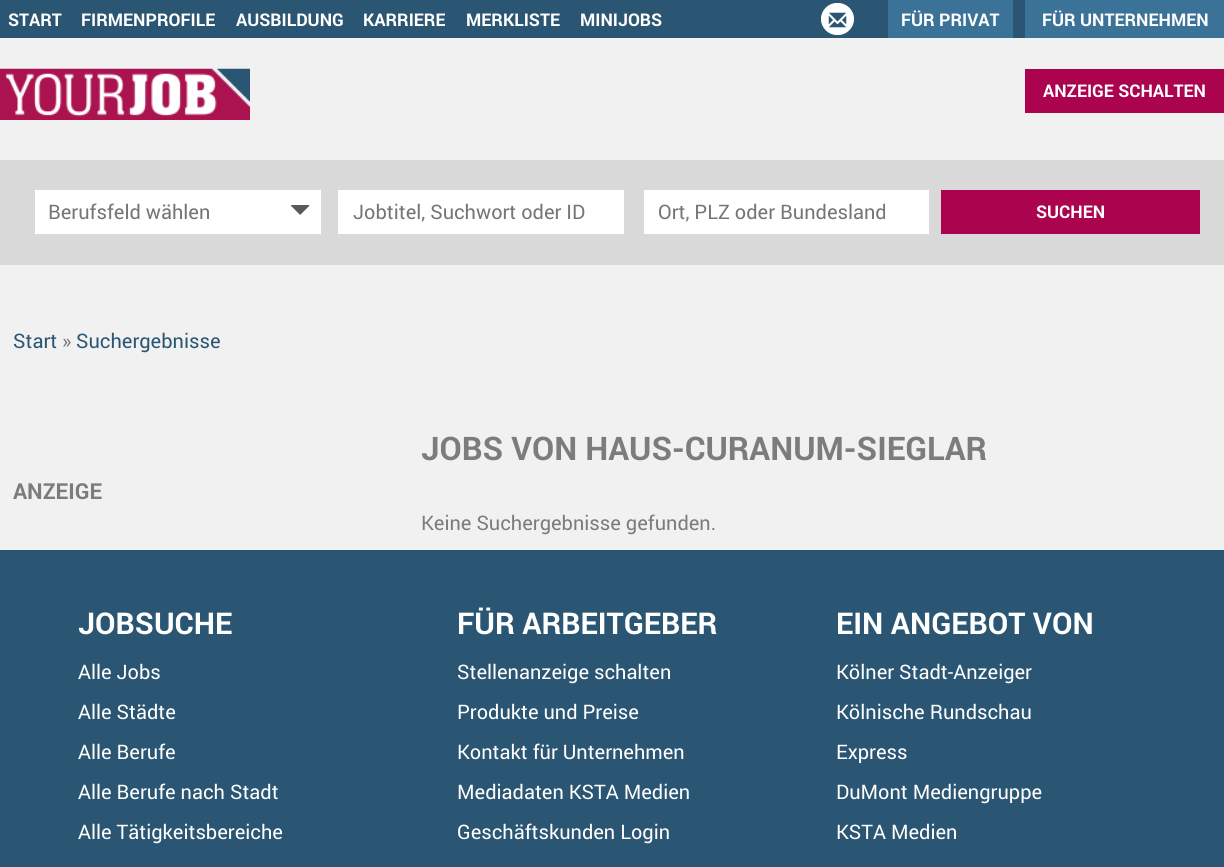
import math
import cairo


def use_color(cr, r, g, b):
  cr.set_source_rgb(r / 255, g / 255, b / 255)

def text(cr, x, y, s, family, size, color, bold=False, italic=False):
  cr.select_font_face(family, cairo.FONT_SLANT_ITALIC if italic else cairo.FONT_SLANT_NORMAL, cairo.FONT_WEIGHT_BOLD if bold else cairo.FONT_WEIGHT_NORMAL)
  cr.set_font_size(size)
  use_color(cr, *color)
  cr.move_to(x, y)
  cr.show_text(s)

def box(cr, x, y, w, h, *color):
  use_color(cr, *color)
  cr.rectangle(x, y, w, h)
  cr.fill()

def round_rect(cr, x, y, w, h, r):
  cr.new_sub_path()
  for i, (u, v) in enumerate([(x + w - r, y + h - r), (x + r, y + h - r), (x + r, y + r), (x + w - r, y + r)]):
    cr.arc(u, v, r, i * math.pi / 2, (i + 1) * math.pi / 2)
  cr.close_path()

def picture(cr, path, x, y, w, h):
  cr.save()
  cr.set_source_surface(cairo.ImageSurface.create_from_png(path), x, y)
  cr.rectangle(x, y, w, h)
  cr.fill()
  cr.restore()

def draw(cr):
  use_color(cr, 241, 241, 241)
  cr.paint()
  box(cr, 0, 0, 1025, 38, 43, 86, 115)
  use_color(cr, 255, 255, 255)
  round_rect(cr, 821.5, 3.5, 32, 31, 15.5)
  cr.fill_preserve()
  cr.set_line_width(1)
  cr.stroke()
  picture(cr, "img_01.png", 828, 12, 19, 16)
  box(cr, 888, 0, 125, 38, 59, 114, 151)
  box(cr, 1025, 0, 199, 38, 59, 114, 151)
  picture(cr, "img_02.png", 0, 68, 250, 52)
  box(cr, 1025, 69, 199, 44, 172, 3, 79)
  box(cr, 0, 160, 1224, 105, 217, 217, 217)
  box(cr, 35, 190, 286, 44, 255, 255, 255)
  picture(cr, "img_03.png", 291, 205, 19, 10)
  box(cr, 338, 190, 286, 44, 255, 255, 255)
  box(cr, 644, 190, 285, 44, 255, 255, 255)
  box(cr, 941, 190, 259, 44, 172, 3, 79)
  box(cr, 0, 550, 1224, 317, 43, 86, 115)
  text(cr, 8, 26, "START", "Roboto", 17.5, (255, 255, 255), bold=True)
  text(cr, 81, 26, "FIRMENPROFILE", "Roboto", 17.5, (255, 255, 255), bold=True)
  text(cr, 236, 26, "AUSBILDUNG", "Roboto", 17.5, (255, 255, 255), bold=True)
  text(cr, 363, 26, "KARRIERE", "Roboto", 17.5, (255, 255, 255), bold=True)
  text(cr, 466, 26, "MERKLISTE", "Roboto", 17.5, (255, 255, 255), bold=True)
  text(cr, 580, 26, "MINIJOBS", "Roboto", 17.5, (255, 255, 255), bold=True)
  text(cr, 901, 26, "FÜR PRIVAT", "Roboto", 17.5, (255, 255, 255), bold=True)
  text(cr, 1042, 26, "FÜR UNTERNEHMEN", "Roboto", 17.5, (255, 255, 255), bold=True)
  text(cr, 1043, 97, "ANZEIGE SCHALTEN", "Roboto", 17.5, (255, 255, 255), bold=True)
  text(cr, 48, 219, "Berufsfeld wählen", "Roboto", 20, (117, 117, 117))
  text(cr, 353, 219, "Jobtitel, Suchwort oder ID", "Roboto", 20, (117, 117, 117))
  text(cr, 658, 219, "Ort, PLZ oder Bundesland", "Roboto", 20, (117, 117, 117))
  text(cr, 1036, 218, "SUCHEN", "Roboto", 17.5, (255, 255, 255), bold=True)
  text(cr, 13, 348, "Start", "Roboto", 20, (43, 86, 115))
  text(cr, 62, 348, "»", "Roboto", 20, (124, 124, 124))
  text(cr, 76, 348, "Suchergebnisse", "Roboto", 20, (43, 86, 115))
  text(cr, 13, 499, "ANZEIGE", "Roboto", 22, (124, 124, 124), bold=True)
  text(cr, 421, 460, "JOBS VON HAUS-CURANUM-SIEGLAR", "Roboto", 32.5, (124, 124, 124), bold=True)
  text(cr, 421, 530, "Keine Suchergebnisse gefunden.", "Roboto", 20, (124, 124, 124))
  text(cr, 78, 634, "JOBSUCHE", "Roboto", 30, (255, 255, 255), bold=True)
  text(cr, 78, 679, "Alle Jobs", "Roboto", 20, (255, 255, 255))
  text(cr, 78, 719, "Alle Städte", "Roboto", 20, (255, 255, 255))
  text(cr, 78, 759, "Alle Berufe", "Roboto", 20, (255, 255, 255))
  text(cr, 78, 799, "Alle Berufe nach Stadt", "Roboto", 20, (255, 255, 255))
  text(cr, 78, 839, "Alle Tätigkeitsbereiche", "Roboto", 20, (255, 255, 255))
  text(cr, 457, 634, "FÜR ARBEITGEBER", "Roboto", 30, (255, 255, 255), bold=True)
  text(cr, 457, 679, "Stellenanzeige schalten", "Roboto", 20, (255, 255, 255))
  text(cr, 457, 719, "Produkte und Preise", "Roboto", 20, (255, 255, 255))
  text(cr, 457, 759, "Kontakt für Unternehmen", "Roboto", 20, (255, 255, 255))
  text(cr, 457, 799, "Mediadaten KSTA Medien", "Roboto", 20, (255, 255, 255))
  text(cr, 457, 839, "Geschäftskunden Login", "Roboto", 20, (255, 255, 255))
  text(cr, 836, 634, "EIN ANGEBOT VON", "Roboto", 30, (255, 255, 255), bold=True)
  text(cr, 836, 679, "Kölner Stadt-Anzeiger", "Roboto", 20, (255, 255, 255))
  text(cr, 836, 719, "Kölnische Rundschau", "Roboto", 20, (255, 255, 255))
  text(cr, 836, 759, "Express", "Roboto", 20, (255, 255, 255))
  text(cr, 836, 799, "DuMont Mediengruppe", "Roboto", 20, (255, 255, 255))
  text(cr, 836, 839, "KSTA Medien", "Roboto", 20, (255, 255, 255))


surface = cairo.ImageSurface(cairo.FORMAT_RGB24, 1224, 867)
cr = cairo.Context(surface)
options = cairo.FontOptions()
options.set_hint_metrics(cairo.HINT_METRICS_OFF)
options.set_hint_style(cairo.HINT_STYLE_NONE)
cr.set_font_options(options)
cr.set_miter_limit(4)
draw(cr)
surface.write_to_png("out.png")
